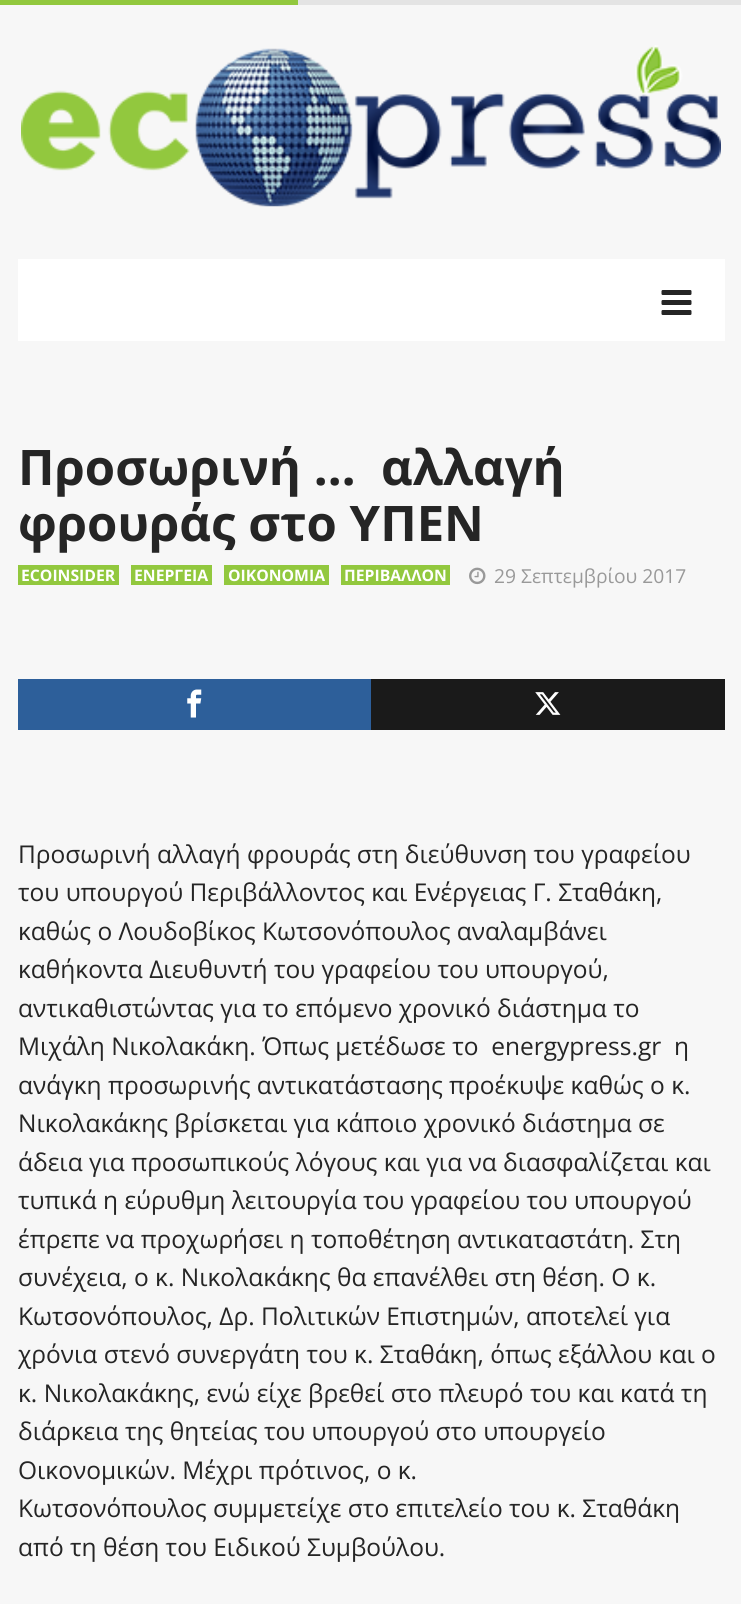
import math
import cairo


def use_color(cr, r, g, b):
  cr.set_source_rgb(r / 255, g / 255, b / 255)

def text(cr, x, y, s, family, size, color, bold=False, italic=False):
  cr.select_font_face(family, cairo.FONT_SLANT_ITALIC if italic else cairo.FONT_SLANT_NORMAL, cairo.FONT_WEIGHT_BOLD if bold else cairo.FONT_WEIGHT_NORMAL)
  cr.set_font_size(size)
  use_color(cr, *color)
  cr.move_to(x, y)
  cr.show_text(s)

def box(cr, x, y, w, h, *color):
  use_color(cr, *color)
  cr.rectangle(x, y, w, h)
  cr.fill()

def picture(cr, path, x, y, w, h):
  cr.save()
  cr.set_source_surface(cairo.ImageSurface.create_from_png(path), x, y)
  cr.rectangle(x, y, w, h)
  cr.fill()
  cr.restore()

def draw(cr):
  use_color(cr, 247, 247, 247)
  cr.paint()
  box(cr, 298, 0, 443, 5, 228, 228, 228)
  box(cr, 0, 0, 298, 5, 146, 200, 62)
  picture(cr, "img_01.png", 21, 45, 700, 162)
  box(cr, 18, 259, 707, 82, 255, 255, 255)
  picture(cr, "img_02.png", 661, 290, 31, 25)
  box(cr, 18, 565, 101, 20, 146, 200, 62)
  box(cr, 131, 565, 81, 20, 146, 200, 62)
  box(cr, 224, 565, 105, 20, 146, 200, 62)
  box(cr, 341, 565, 109, 20, 146, 200, 62)
  picture(cr, "img_03.png", 469, 567, 17, 18)
  box(cr, 18, 679, 353, 51, 45, 95, 154)
  picture(cr, "img_04.png", 187, 689, 15, 29)
  box(cr, 371, 679, 354, 51, 26, 26, 26)
  picture(cr, "img_05.png", 535, 692, 26, 23)
  text(cr, 18, 485, "Προσωρινή …  αλλαγή", "Open Sans", 49, (37, 37, 37), bold=True)
  text(cr, 18, 541, "φρουράς στο ΥΠΕΝ", "Open Sans", 49, (37, 37, 37), bold=True)
  text(cr, 21, 581, "ECOINSIDER", "Open Sans", 15.75, (255, 255, 255), bold=True)
  text(cr, 134, 581, "ΕΝΕΡΓΕΙΑ", "Open Sans", 15.75, (255, 255, 255), bold=True)
  text(cr, 228, 581, "ΟΙΚΟΝΟΜΙΑ", "Open Sans", 15.75, (255, 255, 255), bold=True)
  text(cr, 344, 581, "ΠΕΡΙΒΑΛΛΟΝ", "Open Sans", 15.75, (255, 255, 255), bold=True)
  text(cr, 494, 583, "29 Σεπτεμβρίου 2017", "Open Sans", 19.25, (153, 153, 153))
  text(cr, 18, 863, "Προσωρινή αλλαγή φρουράς στη διεύθυνση του γραφείου", "Open Sans", 24.5, (37, 37, 37))
  text(cr, 18, 901, "του υπουργού Περιβάλλοντος και Ενέργειας Γ. Σταθάκη,", "Open Sans", 24.5, (37, 37, 37))
  text(cr, 18, 940, "καθώς ο Λουδοβίκος Κωτσονόπουλος αναλαμβάνει", "Open Sans", 24.5, (37, 37, 37))
  text(cr, 18, 978, "καθήκοντα Διευθυντή του γραφείου του υπουργού,", "Open Sans", 24.5, (37, 37, 37))
  text(cr, 18, 1017, "αντικαθιστώντας για το επόμενο χρονικό διάστημα το", "Open Sans", 24.5, (37, 37, 37))
  text(cr, 18, 1055, "Μιχάλη Νικολακάκη. Όπως μετέδωσε το  energypress.gr  η", "Open Sans", 24.5, (37, 37, 37))
  text(cr, 18, 1094, "ανάγκη προσωρινής αντικατάστασης προέκυψε καθώς ο κ.", "Open Sans", 24.5, (37, 37, 37))
  text(cr, 18, 1132, "Νικολακάκης βρίσκεται για κάποιο χρονικό διάστημα σε", "Open Sans", 24.5, (37, 37, 37))
  text(cr, 18, 1171, "άδεια για προσωπικούς λόγους και για να διασφαλίζεται και", "Open Sans", 24.5, (37, 37, 37))
  text(cr, 18, 1209, "τυπικά η εύρυθμη λειτουργία του γραφείου του υπουργού", "Open Sans", 24.5, (37, 37, 37))
  text(cr, 18, 1248, "έπρεπε να προχωρήσει η τοποθέτηση αντικαταστάτη. Στη", "Open Sans", 24.5, (37, 37, 37))
  text(cr, 18, 1286, "συνέχεια, ο κ. Νικολακάκης θα επανέλθει στη θέση. Ο κ.", "Open Sans", 24.5, (37, 37, 37))
  text(cr, 18, 1325, "Κωτσονόπουλος, Δρ. Πολιτικών Επιστημών, αποτελεί για", "Open Sans", 24.5, (37, 37, 37))
  text(cr, 18, 1363, "χρόνια στενό συνεργάτη του κ. Σταθάκη, όπως εξάλλου και ο", "Open Sans", 24.5, (37, 37, 37))
  text(cr, 18, 1402, "κ. Νικολακάκης, ενώ είχε βρεθεί στο πλευρό του και κατά τη", "Open Sans", 24.5, (37, 37, 37))
  text(cr, 18, 1440, "διάρκεια της θητείας του υπουργού στο υπουργείο", "Open Sans", 24.5, (37, 37, 37))
  text(cr, 18, 1479, "Οικονομικών. Μέχρι πρότινος, ο κ.", "Open Sans", 24.5, (37, 37, 37))
  text(cr, 18, 1517, "Κωτσονόπουλος συμμετείχε στο επιτελείο του κ. Σταθάκη", "Open Sans", 24.5, (37, 37, 37))
  text(cr, 18, 1556, "από τη θέση του Ειδικού Συμβούλου.", "Open Sans", 24.5, (37, 37, 37))


surface = cairo.ImageSurface(cairo.FORMAT_RGB24, 741, 1604)
cr = cairo.Context(surface)
options = cairo.FontOptions()
options.set_hint_metrics(cairo.HINT_METRICS_OFF)
options.set_hint_style(cairo.HINT_STYLE_NONE)
cr.set_font_options(options)
cr.set_miter_limit(4)
draw(cr)
surface.write_to_png("out.png")
